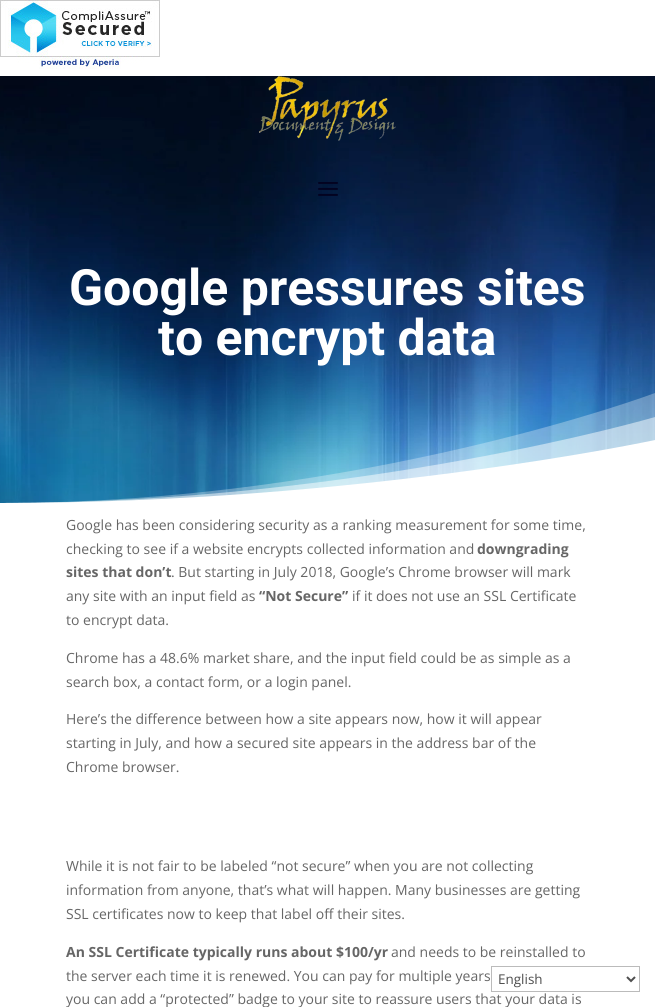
import math
import cairo


def use_color(cr, r, g, b):
  cr.set_source_rgb(r / 255, g / 255, b / 255)

def text(cr, x, y, s, family, size, color, bold=False, italic=False):
  cr.select_font_face(family, cairo.FONT_SLANT_ITALIC if italic else cairo.FONT_SLANT_NORMAL, cairo.FONT_WEIGHT_BOLD if bold else cairo.FONT_WEIGHT_NORMAL)
  cr.set_font_size(size)
  use_color(cr, *color)
  cr.move_to(x, y)
  cr.show_text(s)

def picture(cr, path, x, y, w, h):
  cr.save()
  cr.set_source_surface(cairo.ImageSurface.create_from_png(path), x, y)
  cr.rectangle(x, y, w, h)
  cr.fill()
  cr.restore()

def draw(cr):
  use_color(cr, 255, 255, 255)
  cr.paint()
  picture(cr, "img_01.png", 0, 0, 160, 69)
  picture(cr, "img_02.png", 0, 76, 655, 427)
  picture(cr, "img_03.png", 259, 76, 137, 65)
  picture(cr, "img_04.png", 318, 182, 20, 14)
  cr.set_source_rgba(1, 1, 1, 0.3)
  cr.new_path()
  cr.move_to(655, 503)
  cr.line_to(0, 503)
  cr.curve_to(362, 503, 655, 393, 655, 393)
  cr.close_path()
  cr.fill()
  cr.set_source_rgba(1, 1, 1, 0.5)
  cr.new_path()
  cr.move_to(655, 503)
  cr.line_to(0, 503)
  cr.curve_to(362, 503, 655, 417, 655, 417)
  cr.close_path()
  cr.fill()
  use_color(cr, 255, 255, 255)
  cr.new_path()
  cr.move_to(655, 503)
  cr.line_to(0, 503)
  cr.curve_to(362, 503, 655, 440, 655, 440)
  cr.close_path()
  cr.fill()
  cr.rectangle(491.5, 966.5, 148, 25)
  use_color(cr, 187, 187, 187)
  cr.set_line_width(1)
  cr.stroke()
  cr.new_path()
  cr.move_to(627, 977)
  cr.line_to(631, 981)
  cr.line_to(635, 977)
  use_color(cr, 78, 78, 78)
  cr.set_line_width(2)
  cr.stroke()
  text(cr, 69, 305, "Google pressures sites", "Roboto", 50, (255, 255, 255), bold=True)
  text(cr, 158, 355, "to encrypt data", "Roboto", 50, (255, 255, 255), bold=True)
  text(cr, 66, 530, "Google has been considering security as a ranking measurement for some time,", "Open Sans", 14, (102, 102, 102))
  text(cr, 66, 554, "checking to see if a website encrypts collected information and", "Open Sans", 14, (102, 102, 102))
  text(cr, 477, 554, "downgrading", "Open Sans", 14, (102, 102, 102), bold=True)
  text(cr, 66, 577, "sites that don’t", "Open Sans", 14, (102, 102, 102), bold=True)
  text(cr, 171, 577, ". But starting in July 2018, Google’s Chrome browser will mark", "Open Sans", 14, (102, 102, 102))
  text(cr, 66, 601, "any site with an input field as", "Open Sans", 14, (102, 102, 102))
  text(cr, 259, 601, "“Not Secure”", "Open Sans", 14, (102, 102, 102), bold=True)
  text(cr, 352, 601, "if it does not use an SSL Certificate", "Open Sans", 14, (102, 102, 102))
  text(cr, 66, 625, "to encrypt data.", "Open Sans", 14, (102, 102, 102))
  text(cr, 66, 663, "Chrome has a 48.6% market share, and the input field could be as simple as a", "Open Sans", 14, (102, 102, 102))
  text(cr, 66, 687, "search box, a contact form, or a login panel.", "Open Sans", 14, (102, 102, 102))
  text(cr, 66, 724, "Here’s the difference between how a site appears now, how it will appear", "Open Sans", 14, (102, 102, 102))
  text(cr, 66, 748, "starting in July, and how a secured site appears in the address bar of the", "Open Sans", 14, (102, 102, 102))
  text(cr, 66, 772, "Chrome browser.", "Open Sans", 14, (102, 102, 102))
  text(cr, 66, 871, "While it is not fair to be labeled “not secure” when you are not collecting", "Open Sans", 14, (102, 102, 102))
  text(cr, 66, 895, "information from anyone, that’s what will happen. Many businesses are getting", "Open Sans", 14, (102, 102, 102))
  text(cr, 66, 919, "SSL certificates now to keep that label off their sites.", "Open Sans", 14, (102, 102, 102))
  text(cr, 66, 957, "An SSL Certificate typically runs about $100/yr", "Open Sans", 14, (102, 102, 102), bold=True)
  text(cr, 391, 957, "and needs to be reinstalled to", "Open Sans", 14, (102, 102, 102))
  text(cr, 66, 981, "the server each time it is renewed. You can pay for multiple years", "Open Sans", 14, (102, 102, 102))
  text(cr, 66, 1004, "you can add a “protected” badge to your site to reassure users that your data is", "Open Sans", 14, (102, 102, 102))
  text(cr, 498, 984, "English", "Open Sans", 13.5, (78, 78, 78))


surface = cairo.ImageSurface(cairo.FORMAT_RGB24, 655, 1007)
cr = cairo.Context(surface)
options = cairo.FontOptions()
options.set_hint_metrics(cairo.HINT_METRICS_OFF)
options.set_hint_style(cairo.HINT_STYLE_NONE)
cr.set_font_options(options)
cr.set_miter_limit(4)
draw(cr)
surface.write_to_png("out.png")
